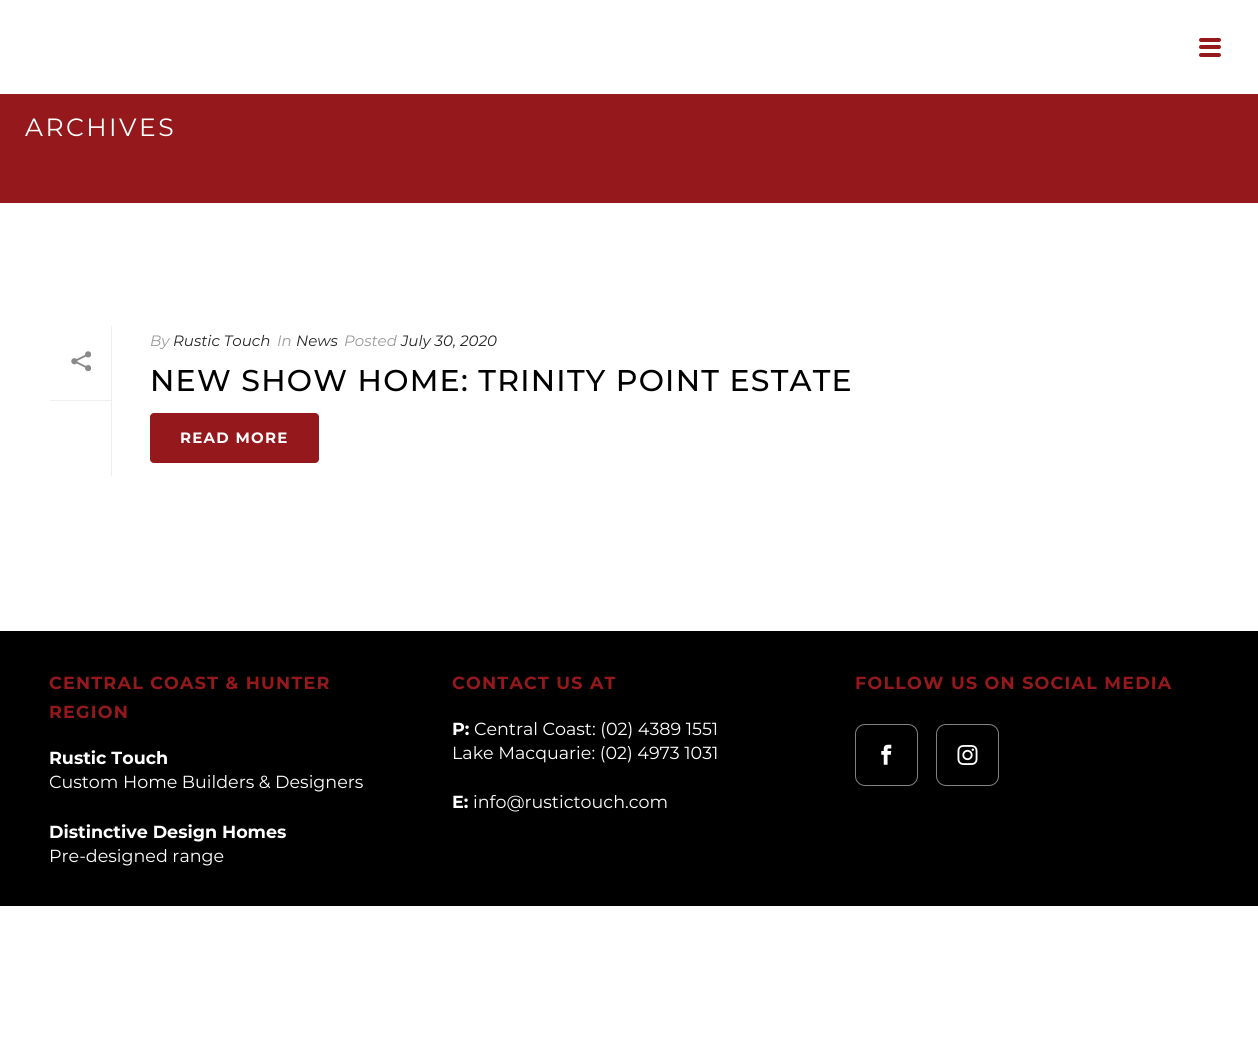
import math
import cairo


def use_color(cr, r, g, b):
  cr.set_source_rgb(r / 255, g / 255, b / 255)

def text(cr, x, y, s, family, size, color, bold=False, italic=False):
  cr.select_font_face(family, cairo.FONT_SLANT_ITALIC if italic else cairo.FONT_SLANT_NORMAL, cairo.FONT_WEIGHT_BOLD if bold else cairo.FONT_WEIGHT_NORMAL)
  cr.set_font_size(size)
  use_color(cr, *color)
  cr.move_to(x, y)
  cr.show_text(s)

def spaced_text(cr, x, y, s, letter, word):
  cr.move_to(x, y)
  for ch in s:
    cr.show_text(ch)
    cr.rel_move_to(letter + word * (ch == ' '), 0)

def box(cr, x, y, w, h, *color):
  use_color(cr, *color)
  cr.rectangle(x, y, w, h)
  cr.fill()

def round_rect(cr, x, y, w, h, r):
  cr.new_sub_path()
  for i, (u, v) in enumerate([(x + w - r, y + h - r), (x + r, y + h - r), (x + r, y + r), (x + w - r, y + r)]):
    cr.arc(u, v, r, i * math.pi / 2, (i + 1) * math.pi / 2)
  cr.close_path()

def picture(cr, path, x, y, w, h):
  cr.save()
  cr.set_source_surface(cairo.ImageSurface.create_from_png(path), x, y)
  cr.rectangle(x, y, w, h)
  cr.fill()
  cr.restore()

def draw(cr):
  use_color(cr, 255, 255, 255)
  cr.paint()
  use_color(cr, 149, 25, 28)
  round_rect(cr, 1199, 38, 22, 4, 2)
  cr.fill()
  round_rect(cr, 1199, 45, 22, 4, 2)
  cr.fill()
  round_rect(cr, 1199, 53, 22, 4, 2)
  cr.fill()
  box(cr, 0, 94, 1258, 109, 149, 25, 28)
  box(cr, 111, 326, 1, 150, 239, 239, 239)
  box(cr, 50, 400, 61, 1, 239, 239, 239)
  picture(cr, "img_01.png", 71, 351, 20, 20)
  use_color(cr, 149, 25, 28)
  round_rect(cr, 150, 413, 169, 50, 4)
  cr.fill()
  box(cr, 0, 631, 1258, 275, 0, 0, 0)
  round_rect(cr, 855.5, 724.5, 62, 61, 9.5)
  use_color(cr, 130, 130, 130)
  cr.set_line_width(1)
  cr.stroke()
  picture(cr, "img_02.png", 881, 744, 11, 21)
  round_rect(cr, 936.5, 724.5, 62, 61, 9.5)
  cr.stroke()
  picture(cr, "img_03.png", 957, 745, 21, 20)
  cr.select_font_face("Montserrat")
  cr.set_font_size(25)
  use_color(cr, 255, 255, 255)
  spaced_text(cr, 25, 136, "ARCHIVES", 2.5, 0)
  text(cr, 150, 346, "By", "Montserrat", 15, (153, 153, 153), italic=True)
  text(cr, 173, 346, "Rustic Touch", "Montserrat", 15, (37, 37, 37), italic=True)
  text(cr, 277, 346, "In", "Montserrat", 15, (153, 153, 153), italic=True)
  text(cr, 296, 346, "News", "Montserrat", 15, (37, 37, 37), italic=True)
  text(cr, 344, 346, "Posted", "Montserrat", 15, (153, 153, 153), italic=True)
  text(cr, 401, 346, "July 30, 2020", "Montserrat", 15, (37, 37, 37), italic=True)
  cr.select_font_face("Montserrat Medium")
  cr.set_font_size(30)
  use_color(cr, 0, 0, 0)
  spaced_text(cr, 150, 391, "NEW SHOW HOME: TRINITY POINT ESTATE", 1.25, 0)
  cr.select_font_face("Montserrat", cairo.FONT_SLANT_NORMAL, cairo.FONT_WEIGHT_BOLD)
  cr.set_font_size(15)
  use_color(cr, 255, 255, 255)
  spaced_text(cr, 180, 443, "READ MORE", 1.25, 0)
  cr.set_font_size(17.5)
  use_color(cr, 149, 25, 28)
  spaced_text(cr, 49, 689, "CENTRAL COAST & HUNTER", 1.25, 0)
  spaced_text(cr, 49, 718, "REGION", 1.25, 0)
  text(cr, 49, 764, "Rustic Touch", "Montserrat", 17.5, (255, 255, 255), bold=True)
  text(cr, 49, 788, "Custom Home Builders & Designers", "Montserrat", 17.5, (255, 255, 255))
  text(cr, 49, 838, "Distinctive Design Homes", "Montserrat", 17.5, (255, 255, 255), bold=True)
  text(cr, 49, 862, "Pre-designed range", "Montserrat", 17.5, (255, 255, 255))
  cr.select_font_face("Montserrat", cairo.FONT_SLANT_NORMAL, cairo.FONT_WEIGHT_BOLD)
  use_color(cr, 149, 25, 28)
  spaced_text(cr, 452, 689, "CONTACT US AT", 1.25, 0)
  text(cr, 452, 735, "P:", "Montserrat", 17.5, (255, 255, 255), bold=True)
  text(cr, 474, 735, "Central Coast: (02) 4389 1551", "Montserrat", 17.5, (255, 255, 255))
  text(cr, 452, 759, "Lake Macquarie: (02) 4973 1031", "Montserrat", 17.5, (255, 255, 255))
  text(cr, 452, 808, "E:", "Montserrat", 17.5, (255, 255, 255), bold=True)
  text(cr, 473, 808, "info@rustictouch.com", "Montserrat", 17.5, (255, 255, 255))
  cr.select_font_face("Montserrat", cairo.FONT_SLANT_NORMAL, cairo.FONT_WEIGHT_BOLD)
  use_color(cr, 149, 25, 28)
  spaced_text(cr, 855, 689, "FOLLOW US ON SOCIAL MEDIA", 1.25, 0)


surface = cairo.ImageSurface(cairo.FORMAT_RGB24, 1258, 1044)
cr = cairo.Context(surface)
options = cairo.FontOptions()
options.set_hint_metrics(cairo.HINT_METRICS_OFF)
options.set_hint_style(cairo.HINT_STYLE_NONE)
cr.set_font_options(options)
cr.set_miter_limit(4)
draw(cr)
surface.write_to_png("out.png")
